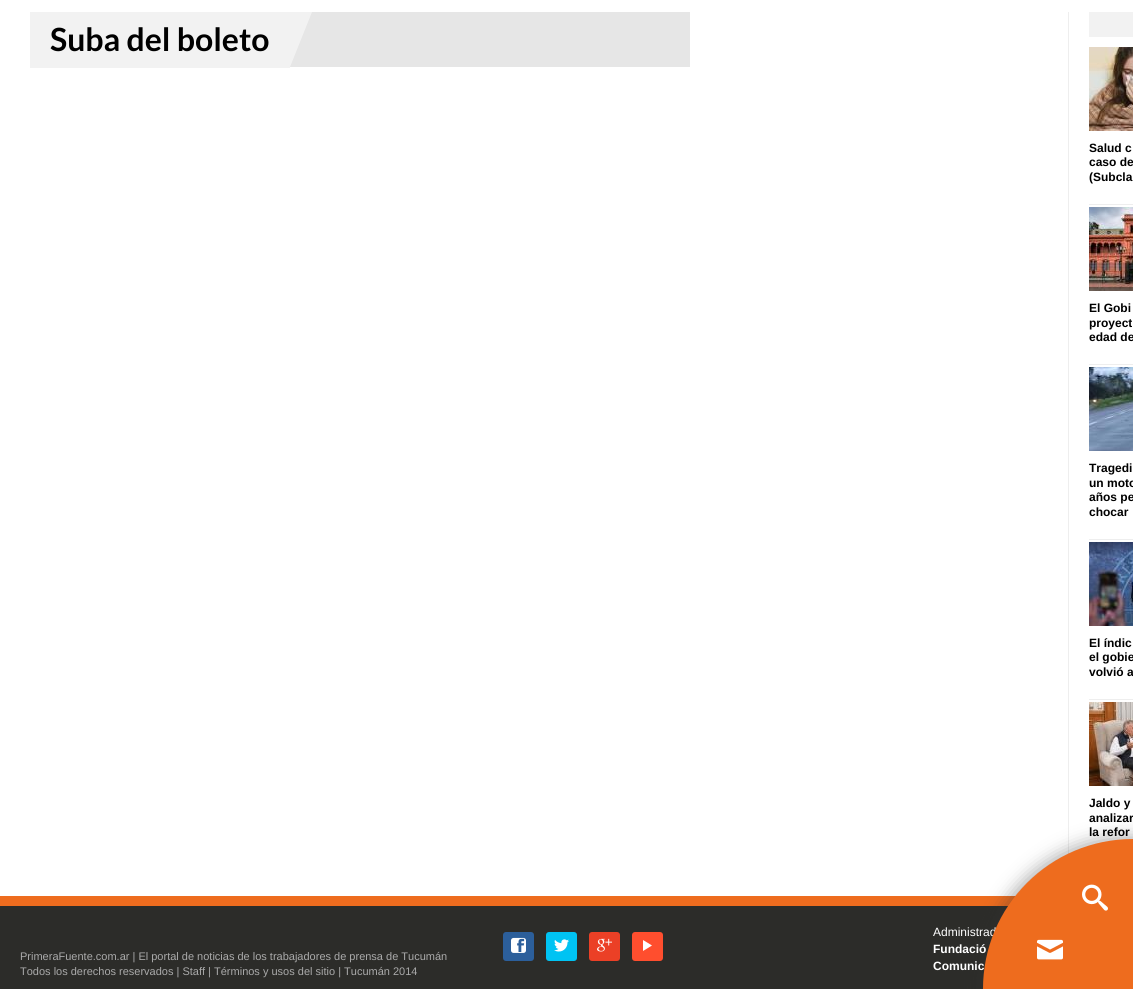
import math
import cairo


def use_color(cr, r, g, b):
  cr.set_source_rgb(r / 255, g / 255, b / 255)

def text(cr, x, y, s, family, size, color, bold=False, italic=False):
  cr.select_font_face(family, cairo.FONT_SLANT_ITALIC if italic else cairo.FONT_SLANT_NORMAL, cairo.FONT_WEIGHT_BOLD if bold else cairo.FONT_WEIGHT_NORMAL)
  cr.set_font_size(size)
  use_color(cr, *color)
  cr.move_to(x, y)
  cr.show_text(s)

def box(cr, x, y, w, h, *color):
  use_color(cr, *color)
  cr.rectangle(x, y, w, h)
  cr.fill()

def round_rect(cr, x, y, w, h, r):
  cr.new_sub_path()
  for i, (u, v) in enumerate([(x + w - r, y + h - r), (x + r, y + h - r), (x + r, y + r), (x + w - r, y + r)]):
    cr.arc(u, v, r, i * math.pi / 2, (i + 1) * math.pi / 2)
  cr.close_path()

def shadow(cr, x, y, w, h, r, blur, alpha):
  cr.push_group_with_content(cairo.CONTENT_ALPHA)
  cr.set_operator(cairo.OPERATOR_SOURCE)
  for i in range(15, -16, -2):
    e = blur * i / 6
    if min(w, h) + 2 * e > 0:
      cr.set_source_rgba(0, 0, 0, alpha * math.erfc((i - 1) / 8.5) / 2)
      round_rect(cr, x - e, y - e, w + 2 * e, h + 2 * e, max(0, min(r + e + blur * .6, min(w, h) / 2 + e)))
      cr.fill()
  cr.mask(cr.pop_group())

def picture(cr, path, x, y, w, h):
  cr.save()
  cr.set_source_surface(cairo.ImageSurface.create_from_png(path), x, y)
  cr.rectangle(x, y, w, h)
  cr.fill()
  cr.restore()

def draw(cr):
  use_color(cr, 255, 255, 255)
  cr.paint()
  box(cr, 290, 12, 400, 55, 230, 230, 230)
  box(cr, 30, 12, 260, 56, 242, 242, 242)
  cr.new_path()
  cr.move_to(290, 12)
  cr.line_to(312, 12)
  cr.line_to(290, 67)
  cr.close_path()
  cr.fill()
  box(cr, 1068, 12, 1, 842, 238, 238, 238)
  box(cr, 1089, 12, 44, 25, 242, 242, 242)
  box(cr, 1089, 204, 44, 1, 238, 238, 238)
  picture(cr, "img_01.png", 1089, 47, 44, 84)
  box(cr, 1089, 364, 44, 1, 238, 238, 238)
  picture(cr, "img_02.png", 1089, 207, 44, 84)
  box(cr, 1089, 539, 44, 1, 238, 238, 238)
  picture(cr, "img_03.png", 1089, 367, 44, 84)
  box(cr, 1089, 699, 44, 1, 238, 238, 238)
  picture(cr, "img_04.png", 1089, 542, 44, 84)
  picture(cr, "img_05.png", 1089, 702, 44, 84)
  box(cr, 0, 906, 1008, 83, 44, 44, 41)
  box(cr, 0, 896, 1016, 10, 238, 108, 30)
  use_color(cr, 44, 95, 155)
  round_rect(cr, 503, 932, 31, 29, 3)
  cr.fill()
  picture(cr, "img_06.png", 511, 937, 15, 16)
  use_color(cr, 0, 195, 243)
  round_rect(cr, 546, 932, 31, 29, 3)
  cr.fill()
  picture(cr, "img_07.png", 554, 939, 15, 13)
  use_color(cr, 235, 64, 38)
  round_rect(cr, 589, 932, 31, 29, 3)
  cr.fill()
  picture(cr, "img_08.png", 597, 938, 15, 14)
  use_color(cr, 255, 78, 46)
  round_rect(cr, 632, 932, 31, 29, 3)
  cr.fill()
  use_color(cr, 255, 255, 255)
  cr.new_path()
  cr.move_to(643, 940)
  cr.line_to(652, 945.5)
  cr.line_to(643, 951)
  cr.close_path()
  cr.fill()
  use_color(cr, 50, 50, 50)
  shadow(cr, 981, 838, 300, 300, 150, 9, 0.44)
  text(cr, 50, 51, "Suba del boleto", "Lato", 32, (0, 0, 0), bold=True)
  text(cr, 1089, 152, "Salud c", "Liberation Sans", 12, (0, 0, 0), bold=True)
  text(cr, 1089, 166, "caso de", "Liberation Sans", 12, (0, 0, 0), bold=True)
  text(cr, 1089, 181, "(Subcla", "Liberation Sans", 12, (0, 0, 0), bold=True)
  text(cr, 1089, 312, "El Gobi", "Liberation Sans", 12, (0, 0, 0), bold=True)
  text(cr, 1089, 327, "proyect", "Liberation Sans", 12, (0, 0, 0), bold=True)
  text(cr, 1089, 341, "edad de", "Liberation Sans", 12, (0, 0, 0), bold=True)
  text(cr, 1089, 472, "Tragedi", "Liberation Sans", 12, (0, 0, 0), bold=True)
  text(cr, 1089, 487, "un moto", "Liberation Sans", 12, (0, 0, 0), bold=True)
  text(cr, 1089, 501, "años pe", "Liberation Sans", 12, (0, 0, 0), bold=True)
  text(cr, 1089, 516, "chocar", "Liberation Sans", 12, (0, 0, 0), bold=True)
  text(cr, 1089, 647, "El índic", "Liberation Sans", 12, (0, 0, 0), bold=True)
  text(cr, 1089, 661, "el gobie", "Liberation Sans", 12, (0, 0, 0), bold=True)
  text(cr, 1089, 676, "volvió a", "Liberation Sans", 12, (0, 0, 0), bold=True)
  text(cr, 1089, 807, "Jaldo y", "Liberation Sans", 12, (0, 0, 0), bold=True)
  text(cr, 1089, 822, "analizar", "Liberation Sans", 12, (0, 0, 0), bold=True)
  text(cr, 1089, 836, "la refor", "Liberation Sans", 12, (0, 0, 0), bold=True)
  text(cr, 933, 936, "Administrad", "Liberation Sans", 12, (255, 255, 255))
  text(cr, 933, 953, "Fundació", "Liberation Sans", 12, (255, 255, 255), bold=True)
  text(cr, 933, 970, "Comunic", "Liberation Sans", 12, (255, 255, 255), bold=True)
  text(cr, 20, 960, "PrimeraFuente.com.ar | El portal de noticias de los trabajadores de prensa de Tucumán", "Liberation Sans", 11, (170, 170, 170))
  text(cr, 20, 975, "Todos los derechos reservados | Staff | Términos y usos del sitio | Tucumán 2014", "Liberation Sans", 11, (170, 170, 170))
  use_color(cr, 238, 108, 30)
  cr.new_path()
  cr.arc(1133, 989, 150, 0, 2 * math.pi)
  cr.fill()
  picture(cr, "img_09.png", 1082, 884, 26, 27)
  picture(cr, "img_10.png", 1037, 939, 26, 21)


surface = cairo.ImageSurface(cairo.FORMAT_RGB24, 1133, 989)
cr = cairo.Context(surface)
options = cairo.FontOptions()
options.set_hint_metrics(cairo.HINT_METRICS_OFF)
options.set_hint_style(cairo.HINT_STYLE_NONE)
cr.set_font_options(options)
cr.set_miter_limit(4)
draw(cr)
surface.write_to_png("out.png")
